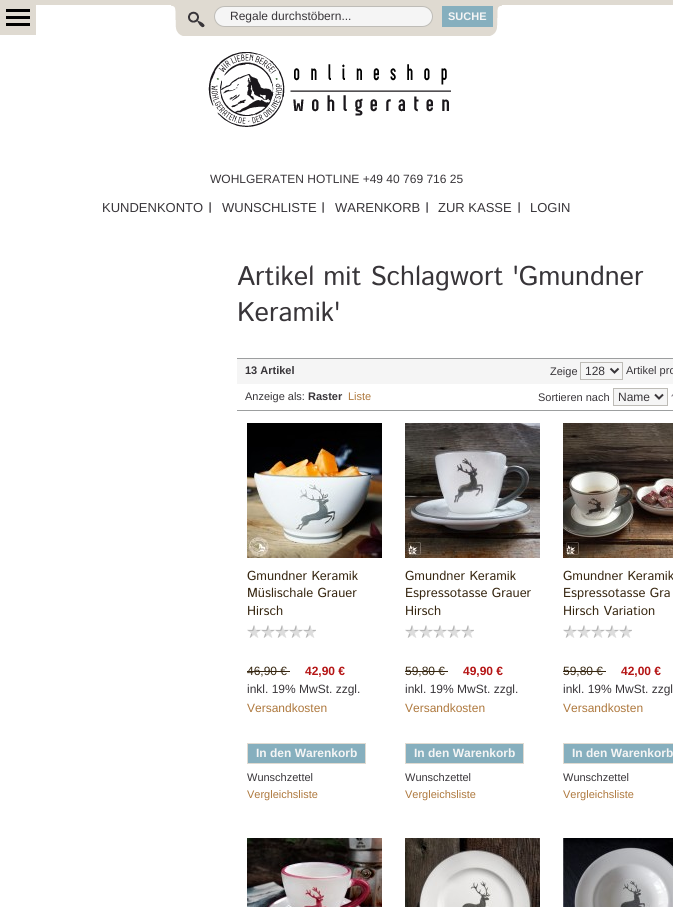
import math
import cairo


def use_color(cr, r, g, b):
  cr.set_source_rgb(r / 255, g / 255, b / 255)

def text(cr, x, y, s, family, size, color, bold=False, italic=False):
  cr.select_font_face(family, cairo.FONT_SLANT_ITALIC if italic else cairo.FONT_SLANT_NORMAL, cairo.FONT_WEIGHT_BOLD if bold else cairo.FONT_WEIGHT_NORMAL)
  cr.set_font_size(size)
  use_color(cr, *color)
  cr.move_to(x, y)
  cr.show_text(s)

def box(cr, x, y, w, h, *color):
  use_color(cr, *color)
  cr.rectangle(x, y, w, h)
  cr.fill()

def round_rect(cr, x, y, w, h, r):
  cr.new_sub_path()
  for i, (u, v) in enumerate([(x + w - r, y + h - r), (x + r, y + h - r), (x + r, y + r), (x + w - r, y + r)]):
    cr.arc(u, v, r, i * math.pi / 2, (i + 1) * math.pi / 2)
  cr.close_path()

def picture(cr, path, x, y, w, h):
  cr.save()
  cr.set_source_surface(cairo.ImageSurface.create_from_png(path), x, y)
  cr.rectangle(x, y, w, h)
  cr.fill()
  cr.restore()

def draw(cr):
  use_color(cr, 255, 255, 255)
  cr.paint()
  box(cr, 0, 0, 36, 35, 223, 218, 209)
  box(cr, 6, 9, 24, 3, 0, 0, 0)
  box(cr, 6, 16, 24, 3, 0, 0, 0)
  box(cr, 6, 23, 24, 3, 0, 0, 0)
  box(cr, 36, 0, 637, 5, 223, 218, 209)
  picture(cr, "img_01.png", 171, 5, 331, 31)
  use_color(cr, 245, 245, 245)
  round_rect(cr, 214.5, 6.5, 218, 20, 10)
  cr.fill_preserve()
  use_color(cr, 190, 188, 183)
  cr.set_line_width(1)
  cr.stroke()
  box(cr, 442, 6, 51, 21, 134, 175, 190)
  picture(cr, "img_02.png", 209, 202, 2, 11)
  picture(cr, "img_02.png", 322, 202, 2, 11)
  picture(cr, "img_02.png", 426, 202, 2, 11)
  picture(cr, "img_02.png", 518, 202, 2, 11)
  picture(cr, "img_03.png", 208, 52, 243, 75)
  box(cr, 237, 359, 436, 25, 245, 245, 245)
  box(cr, 237, 358, 436, 1, 156, 158, 159)
  cr.rectangle(580.5, 362.5, 42, 17)
  use_color(cr, 190, 188, 183)
  cr.stroke()
  cr.new_path()
  cr.move_to(610.5, 368.5)
  cr.line_to(614.5, 372.5)
  cr.line_to(618.5, 368.5)
  use_color(cr, 56, 53, 57)
  cr.set_line_width(2)
  cr.stroke()
  box(cr, 237, 410, 436, 1, 156, 158, 159)
  use_color(cr, 245, 245, 245)
  cr.rectangle(613.5, 388.5, 54, 17)
  cr.fill_preserve()
  use_color(cr, 190, 188, 183)
  cr.set_line_width(1)
  cr.stroke()
  cr.new_path()
  cr.move_to(655, 394.5)
  cr.line_to(659, 398.5)
  cr.line_to(663, 394.5)
  use_color(cr, 56, 53, 57)
  cr.set_line_width(2)
  cr.stroke()
  picture(cr, "img_04.png", 671, 394, 2, 3)
  picture(cr, "img_05.png", 247, 423, 135, 135)
  picture(cr, "img_06.png", 247, 625, 69, 13)
  box(cr, 247, 671, 43, 1, 54, 38, 16)
  use_color(cr, 134, 175, 190)
  cr.rectangle(247.5, 743.5, 118, 20)
  cr.fill_preserve()
  use_color(cr, 223, 218, 209)
  cr.set_line_width(1)
  cr.stroke()
  picture(cr, "img_07.png", 405, 423, 135, 135)
  picture(cr, "img_06.png", 405, 625, 69, 13)
  box(cr, 405, 671, 43, 1, 54, 38, 16)
  use_color(cr, 134, 175, 190)
  cr.rectangle(405.5, 743.5, 118, 20)
  cr.fill_preserve()
  use_color(cr, 223, 218, 209)
  cr.stroke()
  picture(cr, "img_08.png", 563, 423, 110, 135)
  picture(cr, "img_06.png", 563, 625, 69, 13)
  box(cr, 563, 671, 43, 1, 54, 38, 16)
  use_color(cr, 134, 175, 190)
  cr.rectangle(563.5, 743.5, 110, 20)
  cr.fill_preserve()
  use_color(cr, 223, 218, 209)
  cr.stroke()
  picture(cr, "img_09.png", 247, 838, 135, 69)
  picture(cr, "img_10.png", 405, 838, 135, 69)
  picture(cr, "img_11.png", 563, 838, 110, 69)
  text(cr, 230, 20, "Regale durchstöbern...", "Liberation Sans", 12, (56, 53, 57))
  text(cr, 448, 20, "SUCHE", "Liberation Sans", 11, (245, 245, 245), bold=True)
  text(cr, 210, 183, "WOHLGERATEN HOTLINE +49 40 769 716 25", "Liberation Sans", 12, (56, 53, 57))
  text(cr, 102, 212, "KUNDENKONTO", "Liberation Sans", 13, (56, 53, 57))
  text(cr, 222, 212, "WUNSCHLISTE", "Liberation Sans", 13, (56, 53, 57))
  text(cr, 335, 212, "WARENKORB", "Liberation Sans", 13, (56, 53, 57))
  text(cr, 438, 212, "ZUR KASSE", "Liberation Sans", 13, (56, 53, 57))
  text(cr, 530, 212, "LOGIN", "Liberation Sans", 13, (56, 53, 57))
  text(cr, 237, 285, "Artikel mit Schlagwort 'Gmundner", "Istok Web", 27, (56, 53, 57))
  text(cr, 237, 321, "Keramik'", "Istok Web", 27, (56, 53, 57))
  text(cr, 245, 374, "13 Artikel", "Liberation Sans", 11, (56, 53, 57), bold=True)
  text(cr, 550, 375, "Zeige", "Liberation Sans", 11, (56, 53, 57))
  text(cr, 585, 375, "128", "Liberation Sans", 12, (56, 53, 57))
  text(cr, 626, 374, "Artikel pro", "Liberation Sans", 11, (56, 53, 57))
  text(cr, 245, 400, "Anzeige als:", "Liberation Sans", 11, (56, 53, 57))
  text(cr, 308, 400, "Raster", "Liberation Sans", 11, (56, 53, 57), bold=True)
  text(cr, 348, 400, "Liste", "Liberation Sans", 11, (174, 120, 61))
  text(cr, 538, 401, "Sortieren nach", "Liberation Sans", 11, (56, 53, 57))
  text(cr, 618, 401, "Name", "Liberation Sans", 12, (56, 53, 57))
  text(cr, 247, 580, "Gmundner Keramik", "Istok Web", 13, (54, 38, 16))
  text(cr, 247, 597, "Müslischale Grauer", "Istok Web", 13, (54, 38, 16))
  text(cr, 247, 615, "Hirsch", "Istok Web", 13, (54, 38, 16))
  text(cr, 247, 675, "46,90 €", "Liberation Sans", 12, (54, 38, 16))
  text(cr, 305, 675, "42,90 €", "Liberation Sans", 12, (181, 21, 21), bold=True)
  text(cr, 247, 693, "inkl. 19% MwSt. zzgl.", "Liberation Sans", 12, (56, 53, 57))
  text(cr, 247, 712, "Versandkosten", "Liberation Sans", 12, (174, 120, 61))
  text(cr, 256, 757, "In den Warenkorb", "Liberation Sans", 12, (245, 245, 245), bold=True)
  text(cr, 247, 781, "Wunschzettel", "Liberation Sans", 11, (56, 53, 57))
  text(cr, 247, 798, "Vergleichsliste", "Liberation Sans", 11, (174, 120, 61))
  text(cr, 405, 580, "Gmundner Keramik", "Istok Web", 13, (54, 38, 16))
  text(cr, 405, 597, "Espressotasse Grauer", "Istok Web", 13, (54, 38, 16))
  text(cr, 405, 615, "Hirsch", "Istok Web", 13, (54, 38, 16))
  text(cr, 405, 675, "59,80 €", "Liberation Sans", 12, (54, 38, 16))
  text(cr, 463, 675, "49,90 €", "Liberation Sans", 12, (181, 21, 21), bold=True)
  text(cr, 405, 693, "inkl. 19% MwSt. zzgl.", "Liberation Sans", 12, (56, 53, 57))
  text(cr, 405, 712, "Versandkosten", "Liberation Sans", 12, (174, 120, 61))
  text(cr, 414, 757, "In den Warenkorb", "Liberation Sans", 12, (245, 245, 245), bold=True)
  text(cr, 405, 781, "Wunschzettel", "Liberation Sans", 11, (56, 53, 57))
  text(cr, 405, 798, "Vergleichsliste", "Liberation Sans", 11, (174, 120, 61))
  text(cr, 563, 580, "Gmundner Keramik", "Istok Web", 13, (54, 38, 16))
  text(cr, 563, 597, "Espressotasse Gra", "Istok Web", 13, (54, 38, 16))
  text(cr, 563, 615, "Hirsch Variation", "Istok Web", 13, (54, 38, 16))
  text(cr, 563, 675, "59,80 €", "Liberation Sans", 12, (54, 38, 16))
  text(cr, 621, 675, "42,00 €", "Liberation Sans", 12, (181, 21, 21), bold=True)
  text(cr, 563, 693, "inkl. 19% MwSt. zzgl", "Liberation Sans", 12, (56, 53, 57))
  text(cr, 563, 712, "Versandkosten", "Liberation Sans", 12, (174, 120, 61))
  text(cr, 572, 757, "In den Warenkorb", "Liberation Sans", 12, (245, 245, 245), bold=True)
  text(cr, 563, 781, "Wunschzettel", "Liberation Sans", 11, (56, 53, 57))
  text(cr, 563, 798, "Vergleichsliste", "Liberation Sans", 11, (174, 120, 61))


surface = cairo.ImageSurface(cairo.FORMAT_RGB24, 673, 907)
cr = cairo.Context(surface)
options = cairo.FontOptions()
options.set_hint_metrics(cairo.HINT_METRICS_OFF)
options.set_hint_style(cairo.HINT_STYLE_NONE)
cr.set_font_options(options)
cr.set_miter_limit(4)
draw(cr)
surface.write_to_png("out.png")
